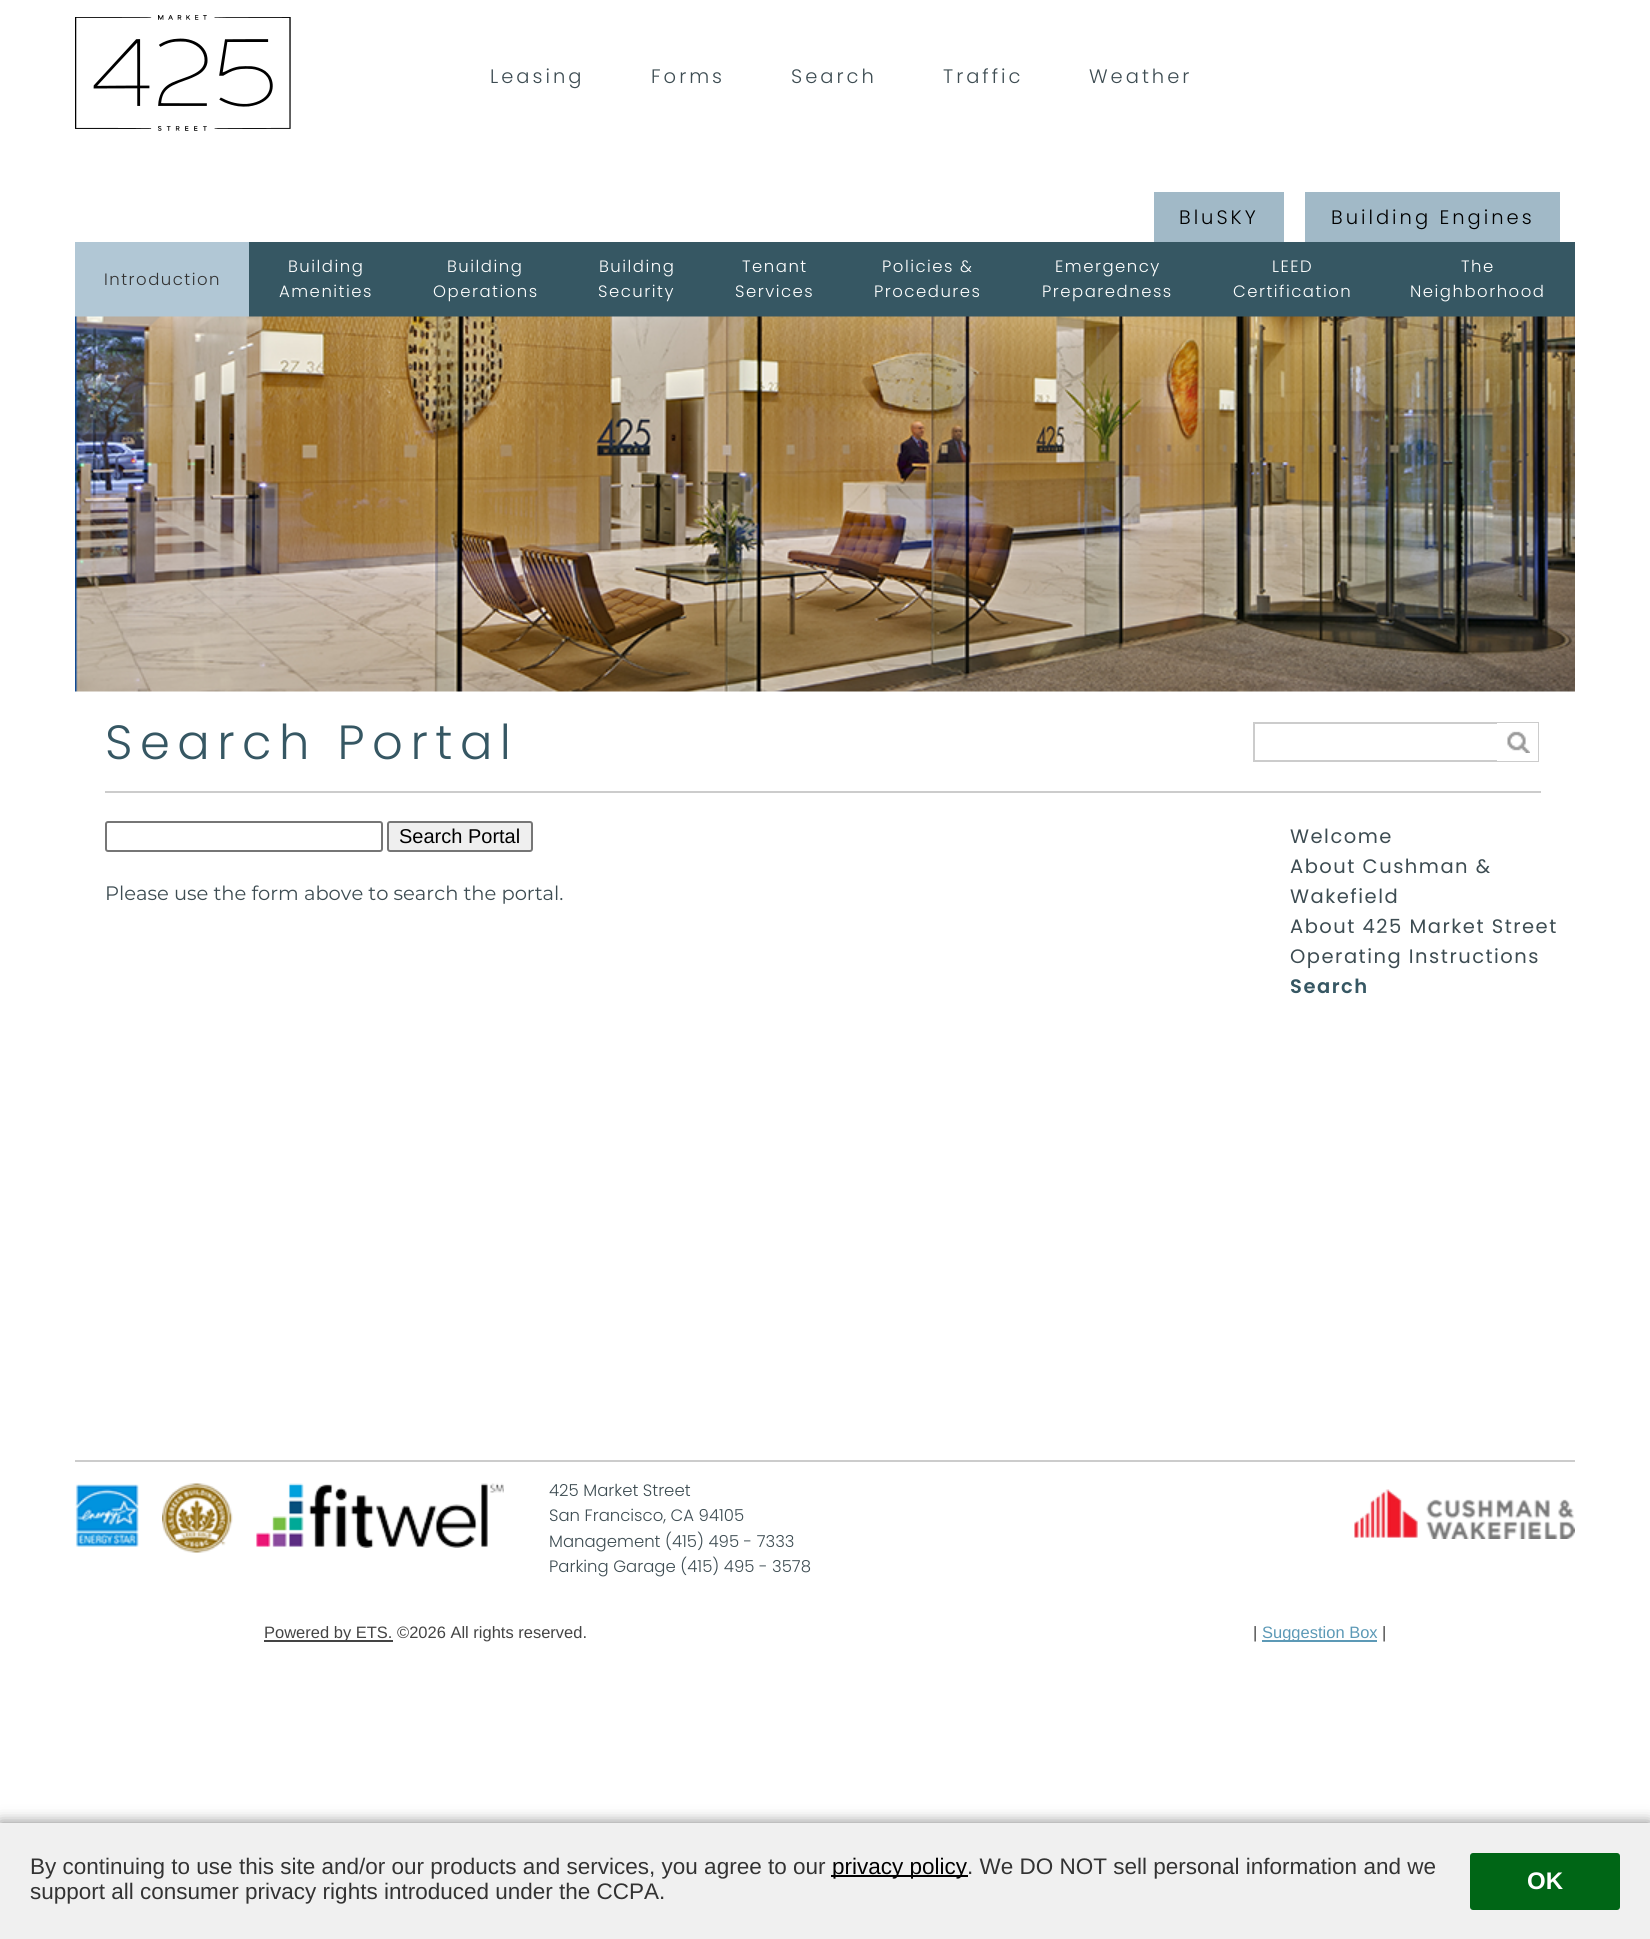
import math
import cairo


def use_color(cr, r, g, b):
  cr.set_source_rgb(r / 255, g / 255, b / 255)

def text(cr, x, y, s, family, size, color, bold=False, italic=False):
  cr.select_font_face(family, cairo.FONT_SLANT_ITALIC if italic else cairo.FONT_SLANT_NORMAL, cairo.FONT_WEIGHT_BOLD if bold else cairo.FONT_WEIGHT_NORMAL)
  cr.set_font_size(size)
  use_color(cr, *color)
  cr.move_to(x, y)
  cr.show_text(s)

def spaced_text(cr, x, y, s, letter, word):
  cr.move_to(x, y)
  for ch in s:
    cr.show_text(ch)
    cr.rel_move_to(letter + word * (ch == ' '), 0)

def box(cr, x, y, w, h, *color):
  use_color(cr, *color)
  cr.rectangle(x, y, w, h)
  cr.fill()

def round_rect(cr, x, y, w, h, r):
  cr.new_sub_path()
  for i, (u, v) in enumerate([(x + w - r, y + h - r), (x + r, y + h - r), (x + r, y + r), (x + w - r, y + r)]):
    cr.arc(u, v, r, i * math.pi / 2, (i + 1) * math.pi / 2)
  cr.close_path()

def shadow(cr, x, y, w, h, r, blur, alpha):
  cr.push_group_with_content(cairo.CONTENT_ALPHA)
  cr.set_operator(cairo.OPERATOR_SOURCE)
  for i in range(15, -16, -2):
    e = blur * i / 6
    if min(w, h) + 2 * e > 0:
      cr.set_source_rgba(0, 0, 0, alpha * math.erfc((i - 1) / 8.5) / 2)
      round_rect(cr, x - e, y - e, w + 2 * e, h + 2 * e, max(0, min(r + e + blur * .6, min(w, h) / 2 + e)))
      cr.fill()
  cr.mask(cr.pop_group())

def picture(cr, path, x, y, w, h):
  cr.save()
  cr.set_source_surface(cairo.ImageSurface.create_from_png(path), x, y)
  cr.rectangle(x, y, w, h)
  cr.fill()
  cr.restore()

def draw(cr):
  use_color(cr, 255, 255, 255)
  cr.paint()
  picture(cr, "img_01.png", 75, 15, 216, 116)
  box(cr, 1154, 192, 130, 50, 161, 185, 199)
  box(cr, 1305, 192, 255, 50, 161, 185, 199)
  box(cr, 249, 242, 1326, 75, 54, 87, 99)
  box(cr, 75, 242, 174, 75, 177, 199, 213)
  picture(cr, "img_02.png", 75, 316, 1500, 376)
  cr.rectangle(1254, 723, 284, 38)
  use_color(cr, 204, 204, 204)
  cr.stroke()
  box(cr, 1497, 723, 41, 38, 255, 255, 255)
  picture(cr, "img_03.png", 1507, 731, 23, 22)
  box(cr, 105, 791, 1436, 2, 204, 204, 204)
  round_rect(cr, 106, 822, 276, 29, 2)
  use_color(cr, 118, 118, 118)
  cr.stroke()
  use_color(cr, 239, 239, 239)
  round_rect(cr, 388, 822, 144, 29, 2)
  cr.fill_preserve()
  use_color(cr, 118, 118, 118)
  cr.stroke()
  box(cr, 75, 1460, 1500, 2, 204, 204, 204)
  picture(cr, "img_04.png", 75, 1484, 65, 63)
  picture(cr, "img_05.png", 162, 1483, 71, 70)
  picture(cr, "img_06.png", 256, 1483, 248, 65)
  picture(cr, "img_07.png", 1354, 1489, 221, 50)
  box(cr, 264, 1640, 129, 2, 68, 68, 68)
  box(cr, 1262, 1640, 115, 2, 92, 153, 182)
  use_color(cr, 0, 0, 0)
  shadow(cr, 0, 1823, 1650, 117, 0, 7.5, 0.5)
  box(cr, 0, 1823, 1650, 116, 240, 240, 240)
  box(cr, 831, 1875, 137, 2, 0, 0, 0)
  use_color(cr, 0, 102, 22)
  round_rect(cr, 1470, 1853, 150, 57, 3)
  cr.fill()
  cr.select_font_face("Poppins Light")
  cr.set_font_size(19.5)
  use_color(cr, 61, 76, 82)
  spaced_text(cr, 490, 83, "Leasing", 3, 0)
  spaced_text(cr, 651, 83, "Forms", 3, 0)
  spaced_text(cr, 791, 83, "Search", 3, 0)
  spaced_text(cr, 943, 83, "Traffic", 3, 0)
  spaced_text(cr, 1089, 83, "Weather", 3, 0)
  use_color(cr, 0, 0, 0)
  spaced_text(cr, 1179, 224, "BluSKY", 3, 0)
  spaced_text(cr, 1331, 224, "Building Engines", 3, 0)
  cr.set_font_size(16.5)
  use_color(cr, 51, 51, 51)
  spaced_text(cr, 104, 285, "Introduction", 1.5, 0)
  use_color(cr, 255, 255, 255)
  spaced_text(cr, 288, 272, "Building", 1.5, 0)
  spaced_text(cr, 279, 297, "Amenities", 1.5, 0)
  spaced_text(cr, 447, 272, "Building", 1.5, 0)
  spaced_text(cr, 433, 297, "Operations", 1.5, 0)
  spaced_text(cr, 599, 272, "Building", 1.5, 0)
  spaced_text(cr, 598, 297, "Security", 1.5, 0)
  spaced_text(cr, 742, 272, "Tenant", 1.5, 0)
  spaced_text(cr, 735, 297, "Services", 1.5, 0)
  spaced_text(cr, 882, 272, "Policies &", 1.5, 0)
  spaced_text(cr, 874, 297, "Procedures", 1.5, 0)
  spaced_text(cr, 1055, 272, "Emergency", 1.5, 0)
  spaced_text(cr, 1042, 297, "Preparedness", 1.5, 0)
  spaced_text(cr, 1272, 272, "LEED", 1.5, 0)
  spaced_text(cr, 1233, 297, "Certification", 1.5, 0)
  spaced_text(cr, 1461, 272, "The", 1.5, 0)
  spaced_text(cr, 1410, 297, "Neighborhood", 1.5, 0)
  cr.set_font_size(48)
  use_color(cr, 54, 87, 99)
  spaced_text(cr, 105, 759, "Search Portal", 7.5, 0)
  text(cr, 399, 843, "Search Portal", "Liberation Sans", 20, (0, 0, 0))
  text(cr, 105, 900, "Please use the form above to search the portal.", "Montserrat", 19.5, (61, 76, 82))
  cr.select_font_face("Poppins")
  spaced_text(cr, 1290, 843, "Welcome", 1.5, 0)
  spaced_text(cr, 1290, 873, "About Cushman &", 1.5, 0)
  spaced_text(cr, 1290, 903, "Wakefield", 1.5, 0)
  spaced_text(cr, 1290, 933, "About 425 Market Street", 1.5, 0)
  spaced_text(cr, 1290, 963, "Operating Instructions", 1.5, 0)
  cr.select_font_face("Poppins SemiBold")
  use_color(cr, 54, 87, 99)
  spaced_text(cr, 1290, 993, "Search", 1.5, 0)
  text(cr, 549, 1496, "425 Market Street", "Poppins Light", 16.5, (61, 76, 82))
  text(cr, 549, 1521, "San Francisco, CA 94105", "Poppins Light", 16.5, (61, 76, 82))
  text(cr, 549, 1547, "Management (415) 495 - 7333", "Poppins Light", 16.5, (61, 76, 82))
  text(cr, 549, 1572, "Parking Garage (415) 495 - 3578", "Poppins Light", 16.5, (61, 76, 82))
  text(cr, 264, 1638, "Powered by ETS. ©2026 All rights reserved.", "Liberation Sans", 16.5, (68, 68, 68))
  text(cr, 1253, 1638, "|", "Liberation Sans", 16.5, (68, 68, 68))
  text(cr, 1262, 1638, "Suggestion Box", "Liberation Sans", 16.5, (92, 153, 182))
  text(cr, 1382, 1638, "|", "Liberation Sans", 16.5, (68, 68, 68))
  text(cr, 30, 1874, "By continuing to use this site and/or our products and services, you agree to our", "Liberation Sans", 22.5, (51, 51, 51))
  text(cr, 832, 1874, "privacy policy", "Liberation Sans", 22.5, (0, 0, 0))
  text(cr, 967, 1874, ". We DO NOT sell personal information and we", "Liberation Sans", 22.5, (51, 51, 51))
  text(cr, 30, 1899, "support all consumer privacy rights introduced under the CCPA.", "Liberation Sans", 22.5, (51, 51, 51))
  text(cr, 1527, 1889, "OK", "Liberation Sans", 24, (255, 255, 255), bold=True)


surface = cairo.ImageSurface(cairo.FORMAT_RGB24, 1650, 1939)
cr = cairo.Context(surface)
options = cairo.FontOptions()
options.set_hint_metrics(cairo.HINT_METRICS_OFF)
options.set_hint_style(cairo.HINT_STYLE_NONE)
cr.set_font_options(options)
cr.set_miter_limit(4)
draw(cr)
surface.write_to_png("out.png")
